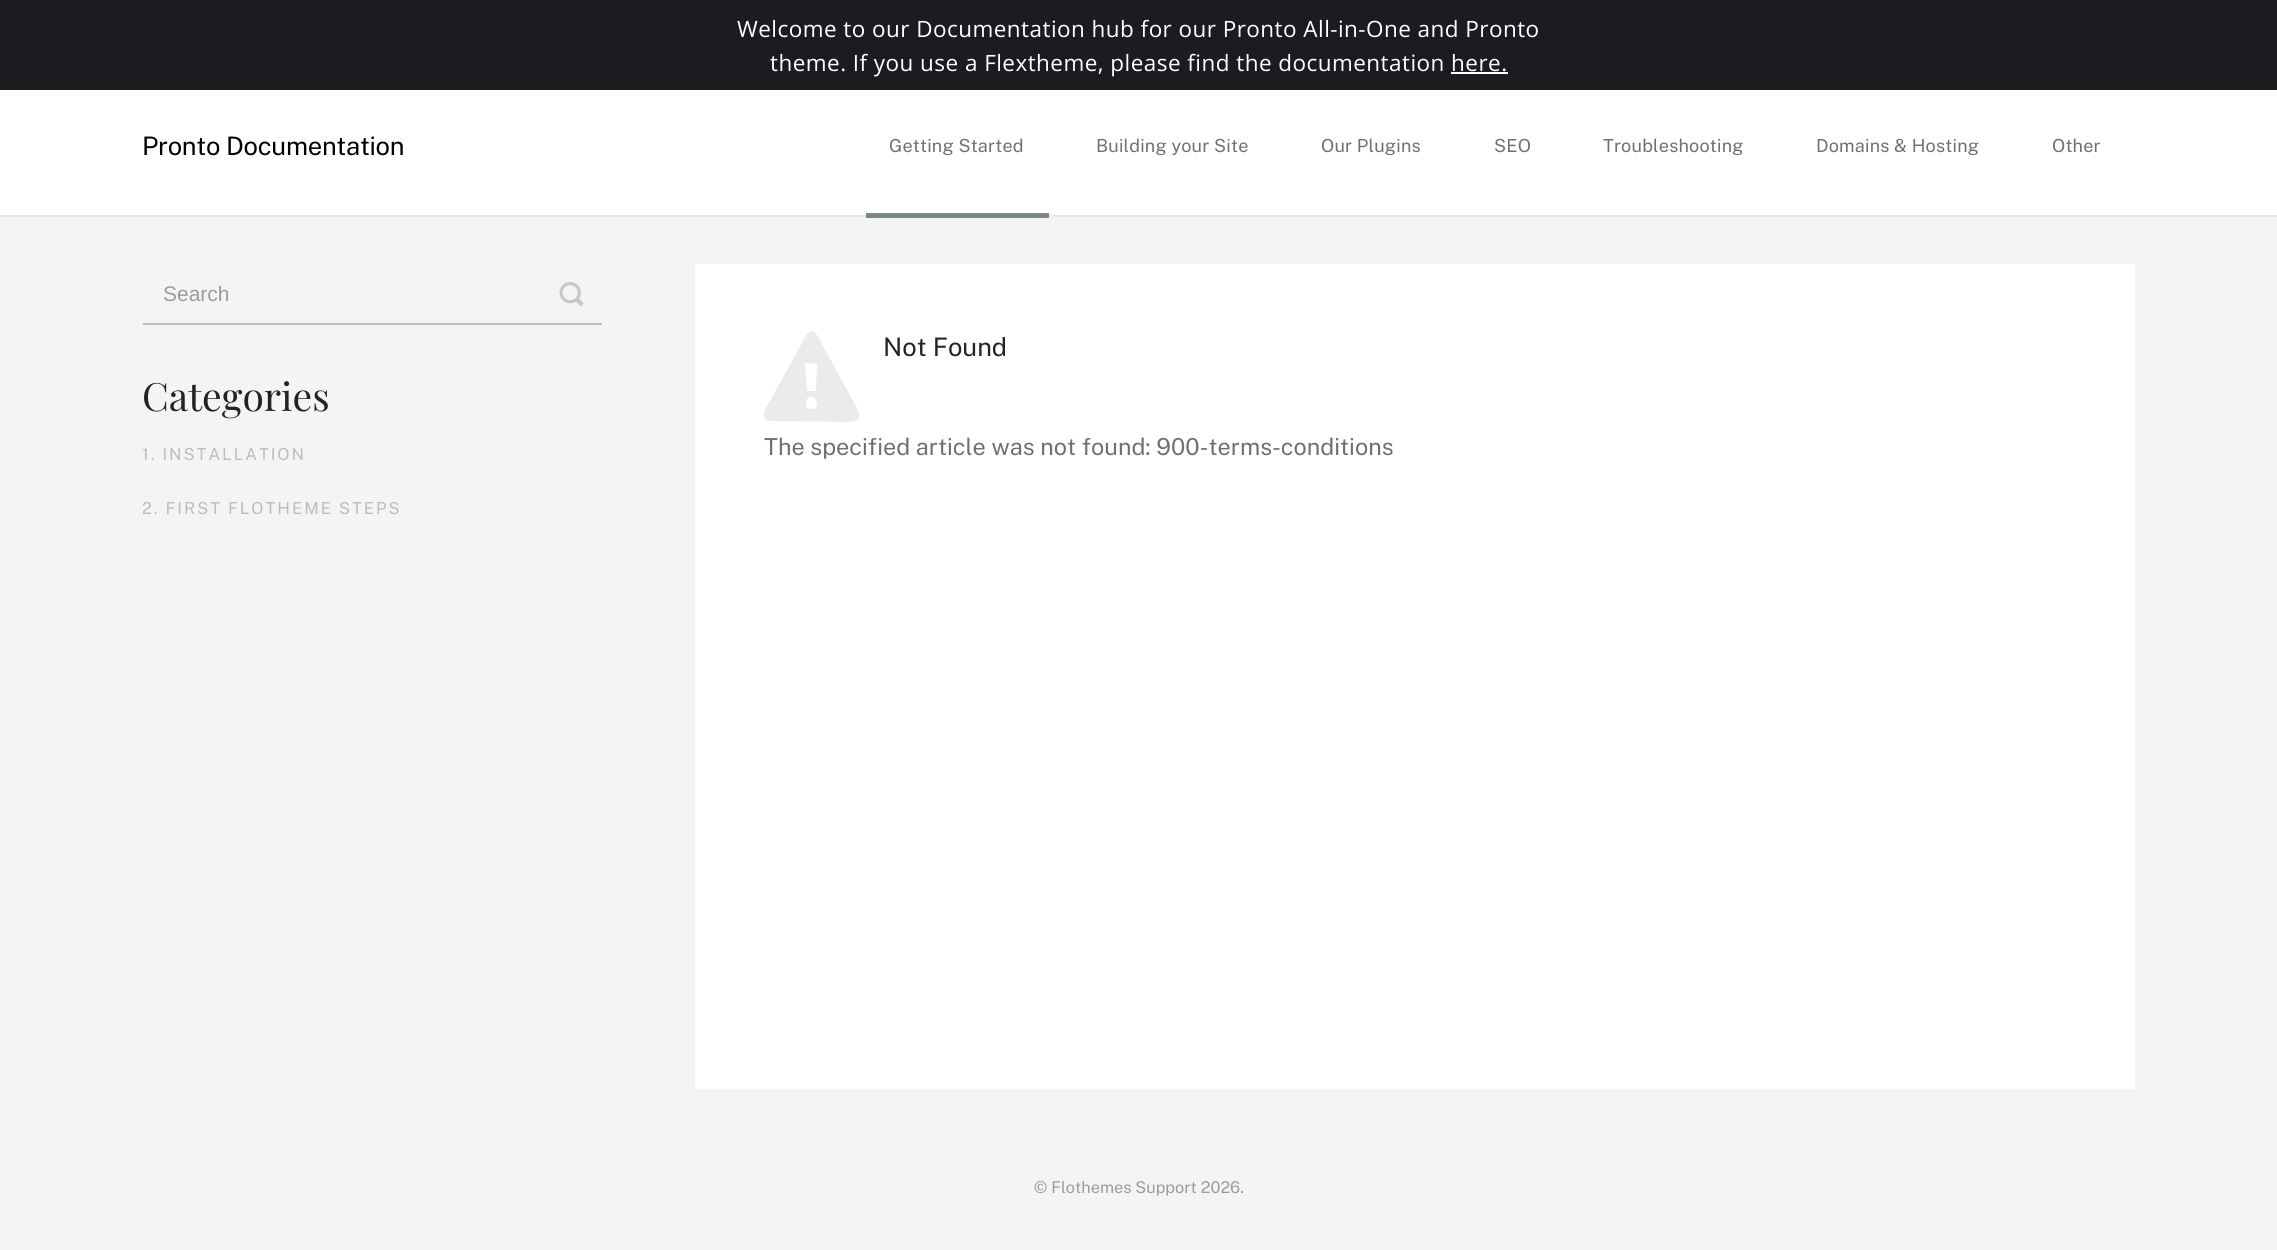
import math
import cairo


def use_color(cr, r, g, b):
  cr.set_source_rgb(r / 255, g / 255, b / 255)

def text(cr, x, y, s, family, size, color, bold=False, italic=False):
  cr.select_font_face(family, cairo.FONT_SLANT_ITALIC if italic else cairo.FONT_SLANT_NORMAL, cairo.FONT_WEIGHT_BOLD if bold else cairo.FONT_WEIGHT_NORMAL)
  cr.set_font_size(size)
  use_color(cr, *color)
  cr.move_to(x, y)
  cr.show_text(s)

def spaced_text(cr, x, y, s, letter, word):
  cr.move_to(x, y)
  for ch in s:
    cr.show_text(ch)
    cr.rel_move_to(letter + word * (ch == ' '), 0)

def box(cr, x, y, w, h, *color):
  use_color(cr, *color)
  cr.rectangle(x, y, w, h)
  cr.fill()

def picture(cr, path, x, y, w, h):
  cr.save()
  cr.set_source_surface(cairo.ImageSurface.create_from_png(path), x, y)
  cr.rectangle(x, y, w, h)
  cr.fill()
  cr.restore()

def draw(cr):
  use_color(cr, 244, 244, 242)
  cr.paint()
  box(cr, 866, 217, 183, 1, 125, 137, 136)
  box(cr, 0, 0, 2277, 90, 27, 28, 32)
  box(cr, 1451, 72, 57, 2, 255, 255, 255)
  box(cr, 0, 90, 2277, 125, 255, 255, 255)
  box(cr, 866, 213, 183, 2, 129, 141, 141)
  box(cr, 0, 215, 2277, 2, 232, 233, 228)
  box(cr, 866, 215, 183, 2, 121, 133, 131)
  box(cr, 143, 323, 459, 2, 188, 188, 188)
  picture(cr, "img_01.png", 559, 282, 25, 24)
  box(cr, 695, 264, 1440, 825, 255, 255, 255)
  use_color(cr, 235, 235, 235)
  cr.new_path()
  cr.move_to(858, 410)
  cr.line_to(817, 335)
  cr.line_to(814, 332)
  cr.curve_to(807, 329, 803, 341, 801, 345)
  cr.line_to(770, 401)
  cr.curve_to(767, 406, 758, 419, 769, 421)
  cr.line_to(847, 422)
  cr.curve_to(851, 422, 857, 422, 859, 417)
  cr.curve_to(860, 414, 859, 412, 858, 410)
  cr.close_path()
  cr.move_to(817, 364)
  cr.line_to(816, 391)
  cr.line_to(807, 391)
  cr.line_to(805, 363)
  cr.close_path()
  cr.move_to(811, 409)
  cr.curve_to(804, 410, 804, 397, 811, 397)
  cr.curve_to(819, 397, 819, 410, 811, 409)
  cr.close_path()
  cr.fill()
  cr.select_font_face("Open Sans")
  cr.set_font_size(22.5)
  use_color(cr, 255, 255, 255)
  spaced_text(cr, 737, 37, "Welcome to our Documentation hub for our Pronto All-in-One and Pronto", 0.45, 0)
  spaced_text(cr, 770, 71, "theme. If you use a Flextheme, please find the documentation here.", 0.45, 0)
  cr.select_font_face("Public Sans Thin")
  cr.set_font_size(25.5)
  use_color(cr, 0, 0, 0)
  spaced_text(cr, 142, 155, "Pronto Documentation", -0.25, 0)
  cr.set_font_size(18)
  use_color(cr, 112, 112, 112)
  spaced_text(cr, 889, 152, "Getting Started", 0.2, 0)
  spaced_text(cr, 1096, 152, "Building your Site", 0.2, 0)
  spaced_text(cr, 1321, 152, "Our Plugins", 0.2, 0)
  spaced_text(cr, 1494, 152, "SEO", 0.2, 0)
  spaced_text(cr, 1603, 152, "Troubleshooting", 0.2, 0)
  spaced_text(cr, 1816, 152, "Domains & Hosting", 0.2, 0)
  spaced_text(cr, 2052, 152, "Other", 0.2, 0)
  text(cr, 163, 301, "Search", "Liberation Sans", 21, (155, 155, 155))
  text(cr, 142, 411, "Categories", "Playfair Display", 39, (35, 35, 35))
  cr.select_font_face("Public Sans Thin")
  cr.set_font_size(16.5)
  use_color(cr, 188, 188, 188)
  spaced_text(cr, 142, 460, "1. INSTALLATION", 2, 0)
  spaced_text(cr, 142, 514, "2. FIRST FLOTHEME STEPS", 2, 0)
  text(cr, 883, 356, "Not Found", "Public Sans Thin", 25.5, (35, 35, 35))
  text(cr, 764, 455, "The specified article was not found: 900-terms-conditions", "Public Sans Thin", 23.4, (112, 112, 112))
  text(cr, 1034, 1193, "© Flothemes Support 2026.", "Public Sans Thin", 16.25, (155, 155, 155))


surface = cairo.ImageSurface(cairo.FORMAT_RGB24, 2277, 1250)
cr = cairo.Context(surface)
options = cairo.FontOptions()
options.set_hint_metrics(cairo.HINT_METRICS_OFF)
options.set_hint_style(cairo.HINT_STYLE_NONE)
cr.set_font_options(options)
cr.set_miter_limit(4)
draw(cr)
surface.write_to_png("out.png")
